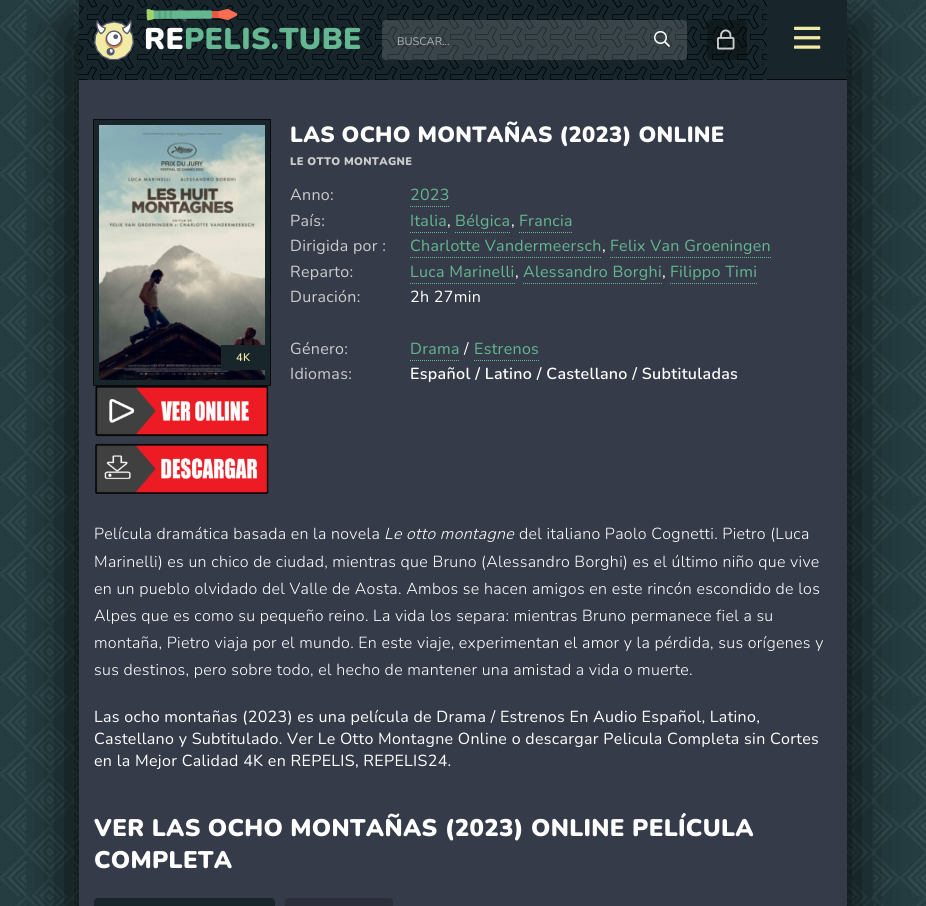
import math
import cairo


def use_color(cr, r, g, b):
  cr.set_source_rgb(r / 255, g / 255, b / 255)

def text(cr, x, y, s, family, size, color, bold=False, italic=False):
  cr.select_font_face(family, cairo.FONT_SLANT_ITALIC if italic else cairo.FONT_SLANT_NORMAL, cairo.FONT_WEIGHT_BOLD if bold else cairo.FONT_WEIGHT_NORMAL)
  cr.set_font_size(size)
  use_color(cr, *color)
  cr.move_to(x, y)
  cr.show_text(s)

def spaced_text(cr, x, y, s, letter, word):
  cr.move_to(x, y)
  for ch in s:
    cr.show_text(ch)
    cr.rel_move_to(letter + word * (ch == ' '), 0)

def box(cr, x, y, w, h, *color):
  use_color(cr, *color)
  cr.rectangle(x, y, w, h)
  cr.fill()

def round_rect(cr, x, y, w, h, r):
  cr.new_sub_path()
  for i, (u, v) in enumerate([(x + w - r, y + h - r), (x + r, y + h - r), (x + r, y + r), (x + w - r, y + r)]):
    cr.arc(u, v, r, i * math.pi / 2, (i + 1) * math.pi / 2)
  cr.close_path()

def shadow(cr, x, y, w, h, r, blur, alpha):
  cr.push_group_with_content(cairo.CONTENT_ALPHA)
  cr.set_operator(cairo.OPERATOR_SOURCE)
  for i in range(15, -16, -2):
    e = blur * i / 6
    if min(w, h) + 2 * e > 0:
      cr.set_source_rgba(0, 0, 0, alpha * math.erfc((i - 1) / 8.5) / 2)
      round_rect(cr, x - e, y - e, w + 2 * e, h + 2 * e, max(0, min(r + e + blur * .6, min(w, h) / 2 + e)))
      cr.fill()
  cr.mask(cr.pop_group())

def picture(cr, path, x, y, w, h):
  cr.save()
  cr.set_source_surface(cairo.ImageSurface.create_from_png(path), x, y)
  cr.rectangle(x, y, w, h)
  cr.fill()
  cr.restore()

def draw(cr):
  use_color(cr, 255, 255, 255)
  cr.paint()
  picture(cr, "img_01.png", 0, 0, 926, 906)
  use_color(cr, 0, 0, 0)
  shadow(cr, 79, 30, 768, 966, 0, 30, 1)
  box(cr, 79, 80, 768, 826, 53, 59, 72)
  picture(cr, "img_02.png", 79, 0, 688, 80)
  picture(cr, "img_03.png", 94, 20, 40, 40)
  picture(cr, "img_04.png", 146, 8, 92, 14)
  cr.set_source_rgba(1, 1, 1, 0.15)
  round_rect(cr, 382, 20, 305, 40, 4)
  cr.fill()
  picture(cr, "img_05.png", 654, 31, 16, 16)
  cr.set_source_rgba(0, 0, 0, 0.3)
  round_rect(cr, 707, 20, 40, 40, 4)
  cr.fill()
  picture(cr, "img_06.png", 717, 29, 18, 21)
  box(cr, 767, 0, 80, 79, 24, 37, 42)
  box(cr, 767, 79, 80, 1, 5, 7, 8)
  picture(cr, "img_07.png", 794, 26, 27, 23)
  picture(cr, "img_09.png", 95, 385, 174, 52)
  cr.rectangle(93.5, 119.5, 177, 266)
  cr.set_source_rgba(0, 0, 0, 0.8)
  cr.set_line_width(1)
  cr.stroke()
  cr.rectangle(96.5, 122.5, 171, 260)
  use_color(cr, 24, 37, 42)
  cr.set_line_width(5)
  cr.stroke()
  picture(cr, "img_08.png", 99, 125, 166, 255)
  box(cr, 221, 345, 44, 25, 24, 37, 42)
  picture(cr, "img_10.png", 95, 443, 174, 51)
  cr.new_path()
  cr.move_to(410, 206.5)
  cr.line_to(450, 206.5)
  use_color(cr, 100, 183, 145)
  cr.set_line_width(1)
  cr.set_dash([1, 1])
  cr.stroke()
  cr.new_path()
  cr.move_to(410, 232.5)
  cr.line_to(447, 232.5)
  cr.stroke()
  cr.new_path()
  cr.move_to(455, 232.5)
  cr.line_to(511, 232.5)
  cr.stroke()
  cr.new_path()
  cr.move_to(519, 232.5)
  cr.line_to(573, 232.5)
  cr.stroke()
  cr.new_path()
  cr.move_to(410, 257.5)
  cr.line_to(602, 257.5)
  cr.stroke()
  cr.new_path()
  cr.move_to(610, 257.5)
  cr.line_to(771, 257.5)
  cr.stroke()
  cr.new_path()
  cr.move_to(410, 283.5)
  cr.line_to(515, 283.5)
  cr.stroke()
  cr.new_path()
  cr.move_to(523, 283.5)
  cr.line_to(662, 283.5)
  cr.stroke()
  cr.new_path()
  cr.move_to(670, 283.5)
  cr.line_to(758, 283.5)
  cr.stroke()
  cr.new_path()
  cr.move_to(410, 360.5)
  cr.line_to(460, 360.5)
  cr.stroke()
  cr.new_path()
  cr.move_to(474, 360.5)
  cr.line_to(539, 360.5)
  cr.stroke()
  use_color(cr, 24, 37, 42)
  round_rect(cr, 94, 898, 181, 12, 4)
  cr.fill()
  use_color(cr, 42, 47, 58)
  round_rect(cr, 285, 898, 108, 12, 4)
  cr.fill()
  cr.select_font_face("Nunito Black")
  cr.set_font_size(30)
  use_color(cr, 255, 255, 255)
  spaced_text(cr, 144, 49, "RE", 0.32, 0)
  use_color(cr, 100, 183, 145)
  spaced_text(cr, 184, 49, "PELIS.TUBE", 0.32, 0)
  text(cr, 397, 45, "BUSCAR...", "Nunito", 11, (175, 180, 181))
  cr.select_font_face("Nunito SemiBold")
  use_color(cr, 241, 235, 166)
  spaced_text(cr, 236, 361, "4K", 0.32, 0)
  cr.select_font_face("Nunito Black")
  cr.set_font_size(22)
  use_color(cr, 255, 255, 255)
  spaced_text(cr, 290, 142, "LAS OCHO MONTAÑAS (2023) ONLINE", 0.32, 0)
  cr.set_font_size(11)
  use_color(cr, 204, 204, 204)
  spaced_text(cr, 290, 165, "LE OTTO MONTAGNE", 0.32, 0)
  cr.select_font_face("Nunito")
  cr.set_font_size(16)
  spaced_text(cr, 290, 200, "Anno:", 0.32, 0)
  use_color(cr, 100, 183, 145)
  spaced_text(cr, 410, 200, "2023", 0.32, 0)
  use_color(cr, 204, 204, 204)
  spaced_text(cr, 290, 226, "País:", 0.32, 0)
  use_color(cr, 100, 183, 145)
  spaced_text(cr, 410, 226, "Italia", 0.32, 0)
  use_color(cr, 255, 255, 255)
  spaced_text(cr, 447, 226, ",", 0.32, 0)
  use_color(cr, 100, 183, 145)
  spaced_text(cr, 455, 226, "Bélgica", 0.32, 0)
  use_color(cr, 255, 255, 255)
  spaced_text(cr, 511, 226, ",", 0.32, 0)
  use_color(cr, 100, 183, 145)
  spaced_text(cr, 519, 226, "Francia", 0.32, 0)
  use_color(cr, 204, 204, 204)
  spaced_text(cr, 290, 251, "Dirigida por :", 0.32, 0)
  use_color(cr, 100, 183, 145)
  spaced_text(cr, 410, 251, "Charlotte Vandermeersch", 0.32, 0)
  use_color(cr, 255, 255, 255)
  spaced_text(cr, 602, 251, ",", 0.32, 0)
  use_color(cr, 100, 183, 145)
  spaced_text(cr, 610, 251, "Felix Van Groeningen", 0.32, 0)
  use_color(cr, 204, 204, 204)
  spaced_text(cr, 290, 277, "Reparto:", 0.32, 0)
  use_color(cr, 100, 183, 145)
  spaced_text(cr, 410, 277, "Luca Marinelli", 0.32, 0)
  use_color(cr, 255, 255, 255)
  spaced_text(cr, 515, 277, ",", 0.32, 0)
  use_color(cr, 100, 183, 145)
  spaced_text(cr, 523, 277, "Alessandro Borghi", 0.32, 0)
  use_color(cr, 255, 255, 255)
  spaced_text(cr, 662, 277, ",", 0.32, 0)
  use_color(cr, 100, 183, 145)
  spaced_text(cr, 670, 277, "Filippo Timi", 0.32, 0)
  use_color(cr, 204, 204, 204)
  spaced_text(cr, 290, 302, "Duración:", 0.32, 0)
  use_color(cr, 255, 255, 255)
  spaced_text(cr, 410, 302, "2h 27min", 0.32, 0)
  use_color(cr, 204, 204, 204)
  spaced_text(cr, 290, 354, "Género:", 0.32, 0)
  use_color(cr, 100, 183, 145)
  spaced_text(cr, 410, 354, "Drama", 0.32, 0)
  use_color(cr, 255, 255, 255)
  spaced_text(cr, 464, 354, "/", 0.32, 0)
  use_color(cr, 100, 183, 145)
  spaced_text(cr, 474, 354, "Estrenos", 0.32, 0)
  use_color(cr, 204, 204, 204)
  spaced_text(cr, 290, 379, "Idiomas:", 0.32, 0)
  cr.select_font_face("Nunito SemiBold")
  use_color(cr, 255, 255, 255)
  spaced_text(cr, 410, 379, "Español / Latino / Castellano / Subtituladas", 0.32, 0)
  cr.select_font_face("Nunito Light")
  spaced_text(cr, 94, 539, "Película dramática basada en la novela", 0.32, 0)
  cr.select_font_face("Nunito Light", cairo.FONT_SLANT_ITALIC)
  spaced_text(cr, 384, 539, "Le otto montagne", 0.32, 0)
  cr.select_font_face("Nunito Light")
  spaced_text(cr, 519, 539, "del italiano Paolo Cognetti. Pietro (Luca", 0.32, 0)
  spaced_text(cr, 94, 567, "Marinelli) es un chico de ciudad, mientras que Bruno (Alessandro Borghi) es el último niño que vive", 0.32, 0)
  spaced_text(cr, 94, 594, "en un pueblo olvidado del Valle de Aosta. Ambos se hacen amigos en este rincón escondido de los", 0.32, 0)
  spaced_text(cr, 94, 621, "Alpes que es como su pequeño reino. La vida los separa: mientras Bruno permanece fiel a su", 0.32, 0)
  spaced_text(cr, 94, 648, "montaña, Pietro viaja por el mundo. En este viaje, experimentan el amor y la pérdida, sus orígenes y", 0.32, 0)
  spaced_text(cr, 94, 675, "sus destinos, pero sobre todo, el hecho de mantener una amistad a vida o muerte.", 0.32, 0)
  cr.select_font_face("Nunito")
  spaced_text(cr, 94, 722, "Las ocho montañas (2023) es una película de Drama / Estrenos En Audio Español, Latino,", 0.32, 0)
  spaced_text(cr, 94, 744, "Castellano y Subtitulado. Ver Le Otto Montagne Online o descargar Pelicula Completa sin Cortes", 0.32, 0)
  spaced_text(cr, 94, 766, "en la Mejor Calidad 4K en REPELIS, REPELIS24.", 0.32, 0)
  cr.select_font_face("Nunito Black")
  cr.set_font_size(24)
  spaced_text(cr, 94, 836, "VER LAS OCHO MONTAÑAS (2023) ONLINE PELÍCULA", 0.32, 0)
  spaced_text(cr, 94, 868, "COMPLETA", 0.32, 0)


surface = cairo.ImageSurface(cairo.FORMAT_RGB24, 926, 906)
cr = cairo.Context(surface)
options = cairo.FontOptions()
options.set_hint_metrics(cairo.HINT_METRICS_OFF)
options.set_hint_style(cairo.HINT_STYLE_NONE)
cr.set_font_options(options)
cr.set_miter_limit(4)
draw(cr)
surface.write_to_png("out.png")
